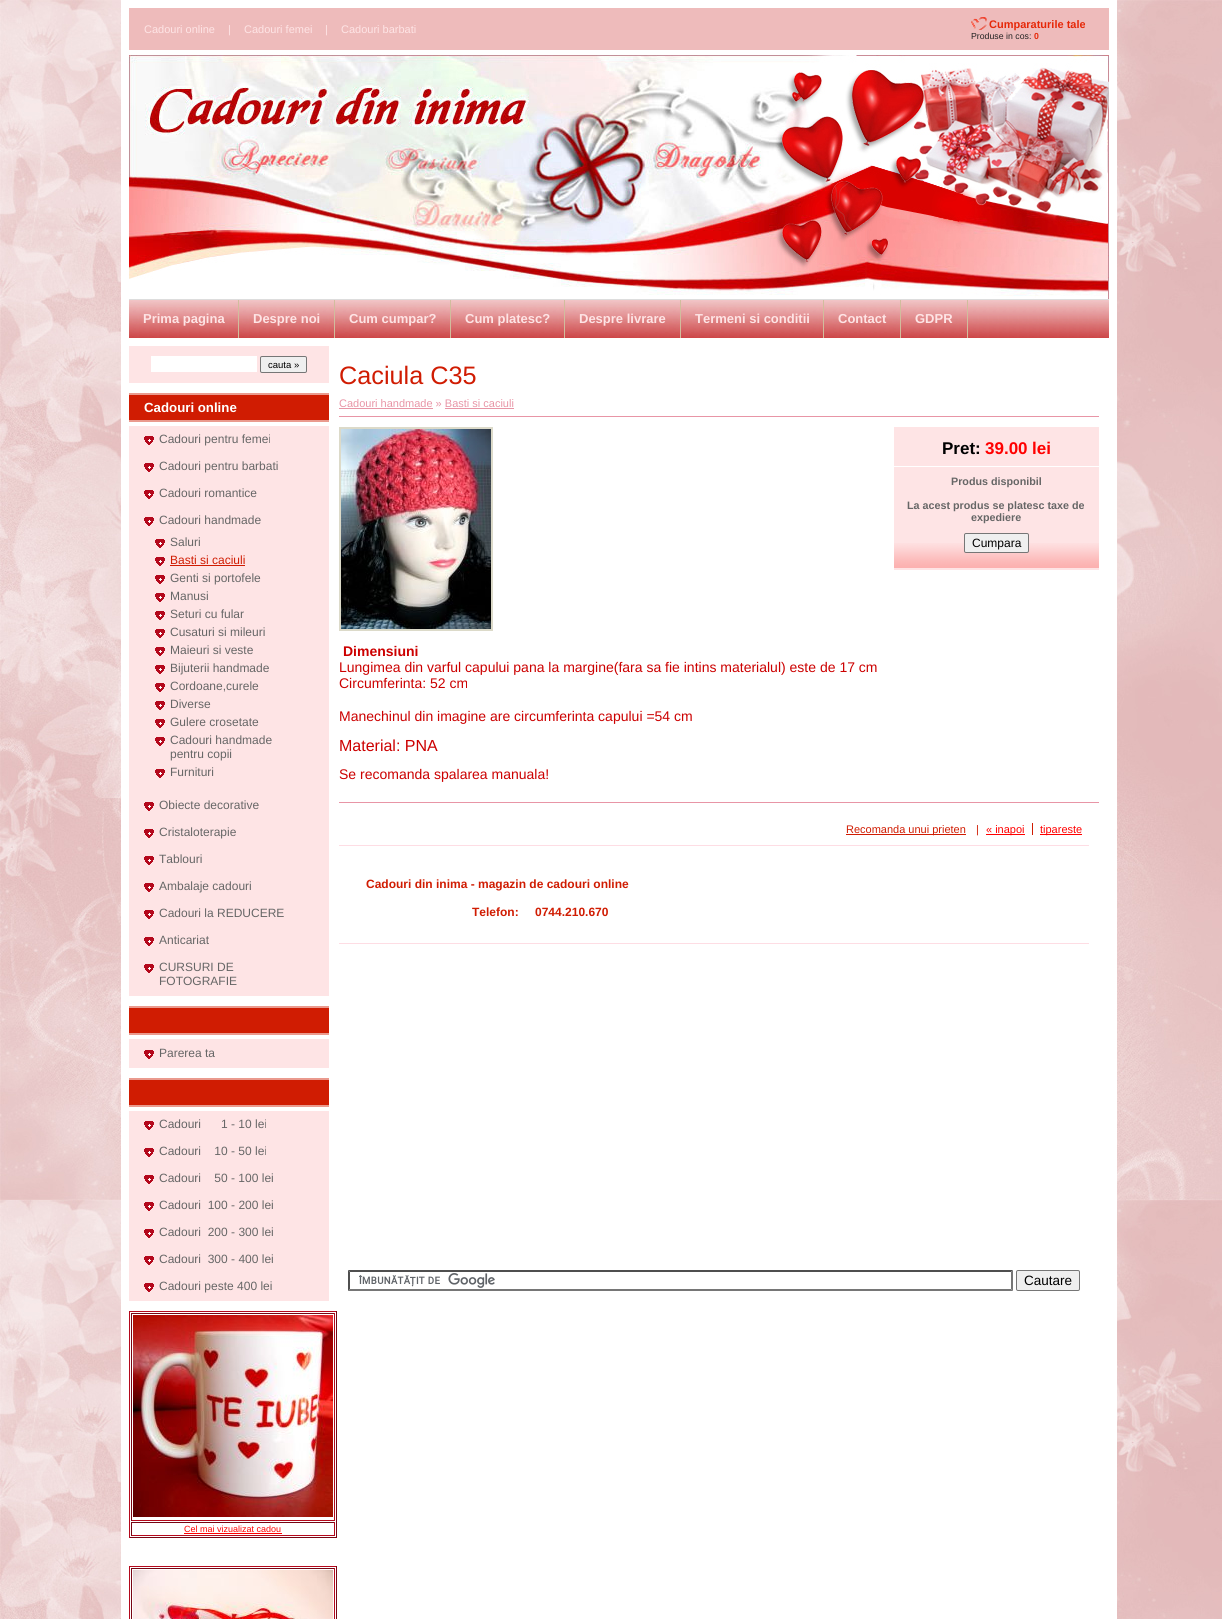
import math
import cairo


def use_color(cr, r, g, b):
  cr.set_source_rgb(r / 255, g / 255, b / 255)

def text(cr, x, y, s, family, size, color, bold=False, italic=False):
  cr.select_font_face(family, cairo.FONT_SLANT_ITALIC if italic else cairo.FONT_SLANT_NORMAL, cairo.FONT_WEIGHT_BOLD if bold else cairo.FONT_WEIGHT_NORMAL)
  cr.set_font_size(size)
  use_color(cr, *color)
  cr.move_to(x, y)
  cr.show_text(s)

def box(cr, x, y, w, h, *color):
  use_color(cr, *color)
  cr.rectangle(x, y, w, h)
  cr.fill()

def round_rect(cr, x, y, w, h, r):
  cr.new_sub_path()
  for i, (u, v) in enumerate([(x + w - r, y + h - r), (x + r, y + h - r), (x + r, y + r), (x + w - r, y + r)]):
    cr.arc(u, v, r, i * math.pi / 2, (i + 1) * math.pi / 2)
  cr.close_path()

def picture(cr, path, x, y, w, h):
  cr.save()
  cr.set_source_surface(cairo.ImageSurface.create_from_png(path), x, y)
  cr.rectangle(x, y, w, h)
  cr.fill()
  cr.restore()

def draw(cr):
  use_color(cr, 255, 255, 255)
  cr.paint()
  picture(cr, "img_01.png", 0, 0, 1222, 1619)
  box(cr, 121, 0, 996, 1619, 255, 255, 255)
  box(cr, 129, 8, 980, 42, 238, 187, 187)
  picture(cr, "img_02.png", 971, 17, 16, 13)
  picture(cr, "img_03.png", 129, 55, 980, 244)
  picture(cr, "img_04.png", 129, 300, 980, 38)
  box(cr, 129, 299, 980, 1, 221, 221, 221)
  box(cr, 238, 300, 1, 38, 209, 189, 157)
  box(cr, 334, 300, 1, 38, 209, 189, 157)
  picture(cr, "img_05.png", 336, 332, 114, 1)
  box(cr, 450, 300, 1, 38, 209, 189, 157)
  picture(cr, "img_06.png", 453, 332, 111, 1)
  box(cr, 564, 300, 1, 38, 209, 189, 157)
  picture(cr, "img_05.png", 566, 332, 114, 1)
  box(cr, 680, 300, 1, 38, 209, 189, 157)
  picture(cr, "img_07.png", 683, 332, 140, 1)
  box(cr, 823, 300, 1, 38, 209, 189, 157)
  picture(cr, "img_08.png", 826, 332, 71, 1)
  box(cr, 900, 300, 1, 38, 209, 189, 157)
  picture(cr, "img_09.png", 903, 332, 61, 1)
  box(cr, 967, 300, 1, 38, 209, 189, 157)
  box(cr, 129, 346, 200, 37, 254, 228, 229)
  box(cr, 151, 356, 106, 16, 255, 255, 255)
  use_color(cr, 239, 239, 239)
  round_rect(cr, 260.5, 356.5, 46, 16, 1.5)
  cr.fill_preserve()
  use_color(cr, 118, 118, 118)
  cr.set_line_width(1)
  cr.stroke()
  box(cr, 129, 395, 200, 25, 208, 28, 2)
  box(cr, 129, 393, 200, 2, 234, 154, 142)
  box(cr, 129, 420, 200, 2, 234, 154, 142)
  box(cr, 129, 426, 200, 570, 254, 228, 229)
  picture(cr, "img_10.png", 144, 436, 10, 9)
  picture(cr, "img_10.png", 144, 463, 10, 9)
  picture(cr, "img_10.png", 144, 490, 10, 9)
  picture(cr, "img_10.png", 144, 517, 10, 9)
  picture(cr, "img_10.png", 155, 539, 10, 9)
  picture(cr, "img_10.png", 155, 557, 10, 9)
  box(cr, 170, 565, 75, 1, 208, 28, 2)
  picture(cr, "img_10.png", 155, 575, 10, 9)
  picture(cr, "img_10.png", 155, 593, 10, 9)
  picture(cr, "img_10.png", 155, 611, 10, 9)
  picture(cr, "img_10.png", 155, 629, 10, 9)
  picture(cr, "img_10.png", 155, 647, 10, 9)
  picture(cr, "img_10.png", 155, 665, 10, 9)
  picture(cr, "img_10.png", 155, 683, 10, 9)
  picture(cr, "img_10.png", 155, 701, 10, 9)
  picture(cr, "img_10.png", 155, 719, 10, 9)
  picture(cr, "img_10.png", 155, 737, 10, 9)
  picture(cr, "img_10.png", 155, 769, 10, 9)
  picture(cr, "img_10.png", 144, 802, 10, 9)
  picture(cr, "img_10.png", 144, 829, 10, 9)
  picture(cr, "img_10.png", 144, 856, 10, 9)
  picture(cr, "img_10.png", 144, 883, 10, 9)
  picture(cr, "img_10.png", 144, 910, 10, 9)
  picture(cr, "img_10.png", 144, 937, 10, 9)
  picture(cr, "img_10.png", 144, 964, 10, 9)
  box(cr, 129, 1008, 200, 25, 208, 28, 2)
  box(cr, 129, 1006, 200, 2, 234, 154, 142)
  box(cr, 129, 1033, 200, 2, 234, 154, 142)
  box(cr, 129, 1039, 200, 29, 254, 228, 229)
  picture(cr, "img_10.png", 144, 1050, 10, 9)
  box(cr, 129, 1080, 200, 25, 208, 28, 2)
  box(cr, 129, 1078, 200, 2, 234, 154, 142)
  box(cr, 129, 1105, 200, 2, 234, 154, 142)
  box(cr, 129, 1111, 200, 190, 254, 228, 229)
  picture(cr, "img_10.png", 144, 1121, 10, 9)
  picture(cr, "img_10.png", 144, 1148, 10, 9)
  picture(cr, "img_10.png", 144, 1175, 10, 9)
  picture(cr, "img_10.png", 144, 1202, 10, 9)
  picture(cr, "img_10.png", 144, 1229, 10, 9)
  picture(cr, "img_10.png", 144, 1256, 10, 9)
  picture(cr, "img_10.png", 144, 1283, 10, 9)
  box(cr, 129, 1311, 208, 1, 180, 8, 28)
  box(cr, 336, 1311, 1, 227, 120, 5, 19)
  box(cr, 129, 1537, 208, 1, 120, 5, 19)
  box(cr, 129, 1311, 1, 227, 180, 8, 28)
  box(cr, 131, 1313, 204, 1, 120, 5, 19)
  box(cr, 334, 1313, 1, 208, 180, 8, 28)
  box(cr, 131, 1520, 204, 1, 180, 8, 28)
  box(cr, 131, 1313, 1, 208, 120, 5, 19)
  picture(cr, "img_11.png", 133, 1315, 200, 202)
  box(cr, 131, 1522, 204, 1, 120, 5, 19)
  box(cr, 334, 1522, 1, 14, 180, 8, 28)
  box(cr, 131, 1535, 204, 1, 180, 8, 28)
  box(cr, 131, 1522, 1, 14, 120, 5, 19)
  box(cr, 184, 1533, 98, 1, 255, 0, 0)
  box(cr, 129, 1566, 208, 1, 180, 8, 28)
  box(cr, 336, 1566, 1, 53, 120, 5, 19)
  box(cr, 129, 1566, 1, 53, 180, 8, 28)
  box(cr, 131, 1568, 204, 1, 120, 5, 19)
  box(cr, 334, 1568, 1, 51, 180, 8, 28)
  box(cr, 131, 1568, 1, 51, 120, 5, 19)
  picture(cr, "img_12.png", 133, 1570, 200, 49)
  box(cr, 339, 802, 760, 1, 232, 149, 166)
  box(cr, 339, 416, 760, 1, 232, 149, 166)
  box(cr, 339, 408, 94, 1, 232, 149, 166)
  box(cr, 445, 408, 69, 1, 232, 149, 166)
  cr.rectangle(340, 428, 152, 202)
  use_color(cr, 220, 218, 201)
  cr.set_line_width(2)
  cr.stroke()
  picture(cr, "img_13.png", 341, 429, 150, 200)
  box(cr, 894, 427, 205, 143, 254, 228, 229)
  picture(cr, "img_14.png", 894, 543, 205, 25)
  box(cr, 894, 466, 205, 1, 255, 255, 255)
  use_color(cr, 239, 239, 239)
  round_rect(cr, 964.5, 533.5, 64, 19, 1.5)
  cr.fill_preserve()
  use_color(cr, 118, 118, 118)
  cr.set_line_width(1)
  cr.stroke()
  box(cr, 846, 834, 120, 1, 208, 28, 2)
  box(cr, 986, 834, 39, 1, 255, 0, 0)
  box(cr, 1032, 823, 1, 12, 208, 28, 2)
  box(cr, 1040, 834, 42, 1, 255, 0, 0)
  box(cr, 339, 845, 750, 1, 254, 221, 228)
  box(cr, 339, 943, 750, 1, 254, 221, 228)
  picture(cr, "img_15.png", 359, 1273, 136, 15)
  use_color(cr, 79, 79, 79)
  cr.new_path()
  cr.move_to(348, 1270)
  cr.line_to(1013, 1270)
  cr.line_to(1011, 1272)
  cr.line_to(350, 1272)
  cr.close_path()
  cr.fill()
  use_color(cr, 118, 118, 118)
  cr.new_path()
  cr.move_to(1013, 1270)
  cr.line_to(1013, 1291)
  cr.line_to(1011, 1289)
  cr.line_to(1011, 1272)
  cr.close_path()
  cr.fill()
  cr.new_path()
  cr.move_to(1013, 1291)
  cr.line_to(348, 1291)
  cr.line_to(350, 1289)
  cr.line_to(1011, 1289)
  cr.close_path()
  cr.fill()
  use_color(cr, 79, 79, 79)
  cr.new_path()
  cr.move_to(348, 1291)
  cr.line_to(348, 1270)
  cr.line_to(350, 1272)
  cr.line_to(350, 1289)
  cr.close_path()
  cr.fill()
  use_color(cr, 239, 239, 239)
  round_rect(cr, 1016.5, 1270.5, 63, 20, 1.5)
  cr.fill_preserve()
  use_color(cr, 118, 118, 118)
  cr.stroke()
  text(cr, 144, 33, "Cadouri online", "Liberation Sans", 11, (254, 228, 229))
  text(cr, 228, 33, "|", "Liberation Sans", 11, (254, 228, 229))
  text(cr, 244, 33, "Cadouri femei", "Liberation Sans", 11, (254, 228, 229))
  text(cr, 325, 33, "|", "Liberation Sans", 11, (254, 228, 229))
  text(cr, 341, 33, "Cadouri barbati", "Liberation Sans", 11, (254, 228, 229))
  text(cr, 989, 28, "Cumparaturile tale", "Liberation Sans", 11, (230, 40, 8), bold=True)
  text(cr, 971, 39, "Produse in cos:", "Liberation Sans", 8.75, (34, 34, 34))
  text(cr, 1034, 39, "0", "Liberation Sans", 8.75, (230, 40, 8), bold=True)
  text(cr, 143, 323, "Prima pagina", "Liberation Sans", 13, (254, 228, 229), bold=True)
  text(cr, 253, 323, "Despre noi", "Liberation Sans", 13, (254, 228, 229), bold=True)
  text(cr, 349, 323, "Cum cumpar?", "Liberation Sans", 13, (254, 228, 229), bold=True)
  text(cr, 465, 323, "Cum platesc?", "Liberation Sans", 13, (254, 228, 229), bold=True)
  text(cr, 579, 323, "Despre livrare", "Liberation Sans", 13, (254, 228, 229), bold=True)
  text(cr, 695, 323, "Termeni si conditii", "Liberation Sans", 13, (254, 228, 229), bold=True)
  text(cr, 838, 323, "Contact", "Liberation Sans", 13, (254, 228, 229), bold=True)
  text(cr, 915, 323, "GDPR", "Liberation Sans", 13, (254, 228, 229), bold=True)
  text(cr, 268, 368, "cauta »", "Liberation Sans", 9.5, (0, 0, 0))
  text(cr, 144, 412, "Cadouri online", "Liberation Sans", 13.25, (255, 255, 255), bold=True)
  text(cr, 159, 443, "Cadouri pentru femei", "Liberation Sans", 12, (102, 102, 102))
  text(cr, 159, 470, "Cadouri pentru barbati", "Liberation Sans", 12, (102, 102, 102))
  text(cr, 159, 497, "Cadouri romantice", "Liberation Sans", 12, (102, 102, 102))
  text(cr, 159, 524, "Cadouri handmade", "Liberation Sans", 12, (102, 102, 102))
  text(cr, 170, 546, "Saluri", "Liberation Sans", 12, (102, 102, 102))
  text(cr, 170, 564, "Basti si caciuli", "Liberation Sans", 12, (208, 28, 2))
  text(cr, 170, 582, "Genti si portofele", "Liberation Sans", 12, (102, 102, 102))
  text(cr, 170, 600, "Manusi", "Liberation Sans", 12, (102, 102, 102))
  text(cr, 170, 618, "Seturi cu fular", "Liberation Sans", 12, (102, 102, 102))
  text(cr, 170, 636, "Cusaturi si mileuri", "Liberation Sans", 12, (102, 102, 102))
  text(cr, 170, 654, "Maieuri si veste", "Liberation Sans", 12, (102, 102, 102))
  text(cr, 170, 672, "Bijuterii handmade", "Liberation Sans", 12, (102, 102, 102))
  text(cr, 170, 690, "Cordoane,curele", "Liberation Sans", 12, (102, 102, 102))
  text(cr, 170, 708, "Diverse", "Liberation Sans", 12, (102, 102, 102))
  text(cr, 170, 726, "Gulere crosetate", "Liberation Sans", 12, (102, 102, 102))
  text(cr, 170, 744, "Cadouri handmade", "Liberation Sans", 12, (102, 102, 102))
  text(cr, 170, 758, "pentru copii", "Liberation Sans", 12, (102, 102, 102))
  text(cr, 170, 776, "Furnituri", "Liberation Sans", 12, (102, 102, 102))
  text(cr, 159, 809, "Obiecte decorative", "Liberation Sans", 12, (102, 102, 102))
  text(cr, 159, 836, "Cristaloterapie", "Liberation Sans", 12, (102, 102, 102))
  text(cr, 159, 863, "Tablouri", "Liberation Sans", 12, (102, 102, 102))
  text(cr, 159, 890, "Ambalaje cadouri", "Liberation Sans", 12, (102, 102, 102))
  text(cr, 159, 917, "Cadouri la REDUCERE", "Liberation Sans", 12, (102, 102, 102))
  text(cr, 159, 944, "Anticariat", "Liberation Sans", 12, (102, 102, 102))
  text(cr, 159, 971, "CURSURI DE", "Liberation Sans", 12, (102, 102, 102))
  text(cr, 159, 985, "FOTOGRAFIE", "Liberation Sans", 12, (102, 102, 102))
  text(cr, 159, 1057, "Parerea ta", "Liberation Sans", 12, (102, 102, 102))
  text(cr, 159, 1128, "Cadouri      1 - 10 lei", "Liberation Sans", 12, (102, 102, 102))
  text(cr, 159, 1155, "Cadouri    10 - 50 lei", "Liberation Sans", 12, (102, 102, 102))
  text(cr, 159, 1182, "Cadouri    50 - 100 lei", "Liberation Sans", 12, (102, 102, 102))
  text(cr, 159, 1209, "Cadouri  100 - 200 lei", "Liberation Sans", 12, (102, 102, 102))
  text(cr, 159, 1236, "Cadouri  200 - 300 lei", "Liberation Sans", 12, (102, 102, 102))
  text(cr, 159, 1263, "Cadouri  300 - 400 lei", "Liberation Sans", 12, (102, 102, 102))
  text(cr, 159, 1290, "Cadouri peste 400 lei", "Liberation Sans", 12, (102, 102, 102))
  text(cr, 184, 1532, "Cel mai vizualizat cadou", "Liberation Sans", 9, (255, 0, 0))
  text(cr, 339, 384, "Caciula C35", "Liberation Sans", 25.25, (208, 28, 2))
  text(cr, 339, 407, "Cadouri handmade » Basti si caciuli", "Liberation Sans", 11, (232, 149, 166))
  text(cr, 942, 454, "Pret:", "Liberation Sans", 17, (0, 0, 0), bold=True)
  text(cr, 985, 454, "39.00", "Liberation Sans", 17, (255, 0, 0), bold=True)
  text(cr, 1032, 454, "lei", "Liberation Sans", 17, (255, 0, 0), bold=True)
  text(cr, 951, 485, "Produs disponibil", "Liberation Sans", 10.75, (102, 102, 102), bold=True)
  text(cr, 907, 509, "La acest produs se platesc taxe de", "Liberation Sans", 10.75, (102, 102, 102), bold=True)
  text(cr, 971, 521, "expediere", "Liberation Sans", 10.75, (102, 102, 102), bold=True)
  text(cr, 972, 547, "Cumpara", "Liberation Sans", 12, (0, 0, 0))
  text(cr, 343, 656, "Dimensiuni", "Liberation Sans", 14, (204, 0, 0), bold=True)
  text(cr, 339, 672, "Lungimea din varful capului pana la margine(fara sa fie intins materialul) este de 17 cm", "Liberation Sans", 14, (204, 0, 0))
  text(cr, 339, 688, "Circumferinta: 52 cm", "Liberation Sans", 14, (204, 0, 0))
  text(cr, 339, 721, "Manechinul din imagine are circumferinta capului =54 cm", "Liberation Sans", 14, (204, 0, 0))
  text(cr, 339, 751, "Material: PNA", "Liberation Sans", 16, (204, 0, 0))
  text(cr, 339, 779, "Se recomanda spalarea manuala!", "Liberation Sans", 14, (204, 0, 0))
  text(cr, 846, 833, "Recomanda unui prieten", "Liberation Sans", 11, (208, 28, 2))
  text(cr, 976, 833, "|", "Liberation Sans", 11, (208, 28, 2))
  text(cr, 986, 833, "« inapoi", "Liberation Sans", 11, (255, 0, 0))
  text(cr, 1040, 833, "tipareste", "Liberation Sans", 11, (255, 0, 0))
  text(cr, 366, 888, "Cadouri din inima - magazin de cadouri online", "Liberation Sans", 12, (208, 28, 2), bold=True)
  text(cr, 472, 916, "Telefon:", "Liberation Sans", 12, (208, 28, 2), bold=True)
  text(cr, 535, 916, "0744.210.670", "Liberation Sans", 12, (208, 28, 2), bold=True)
  text(cr, 1024, 1285, "Cautare", "Liberation Sans", 13.5, (0, 0, 0))


surface = cairo.ImageSurface(cairo.FORMAT_RGB24, 1222, 1619)
cr = cairo.Context(surface)
options = cairo.FontOptions()
options.set_hint_metrics(cairo.HINT_METRICS_OFF)
options.set_hint_style(cairo.HINT_STYLE_NONE)
cr.set_font_options(options)
cr.set_miter_limit(4)
draw(cr)
surface.write_to_png("out.png")
